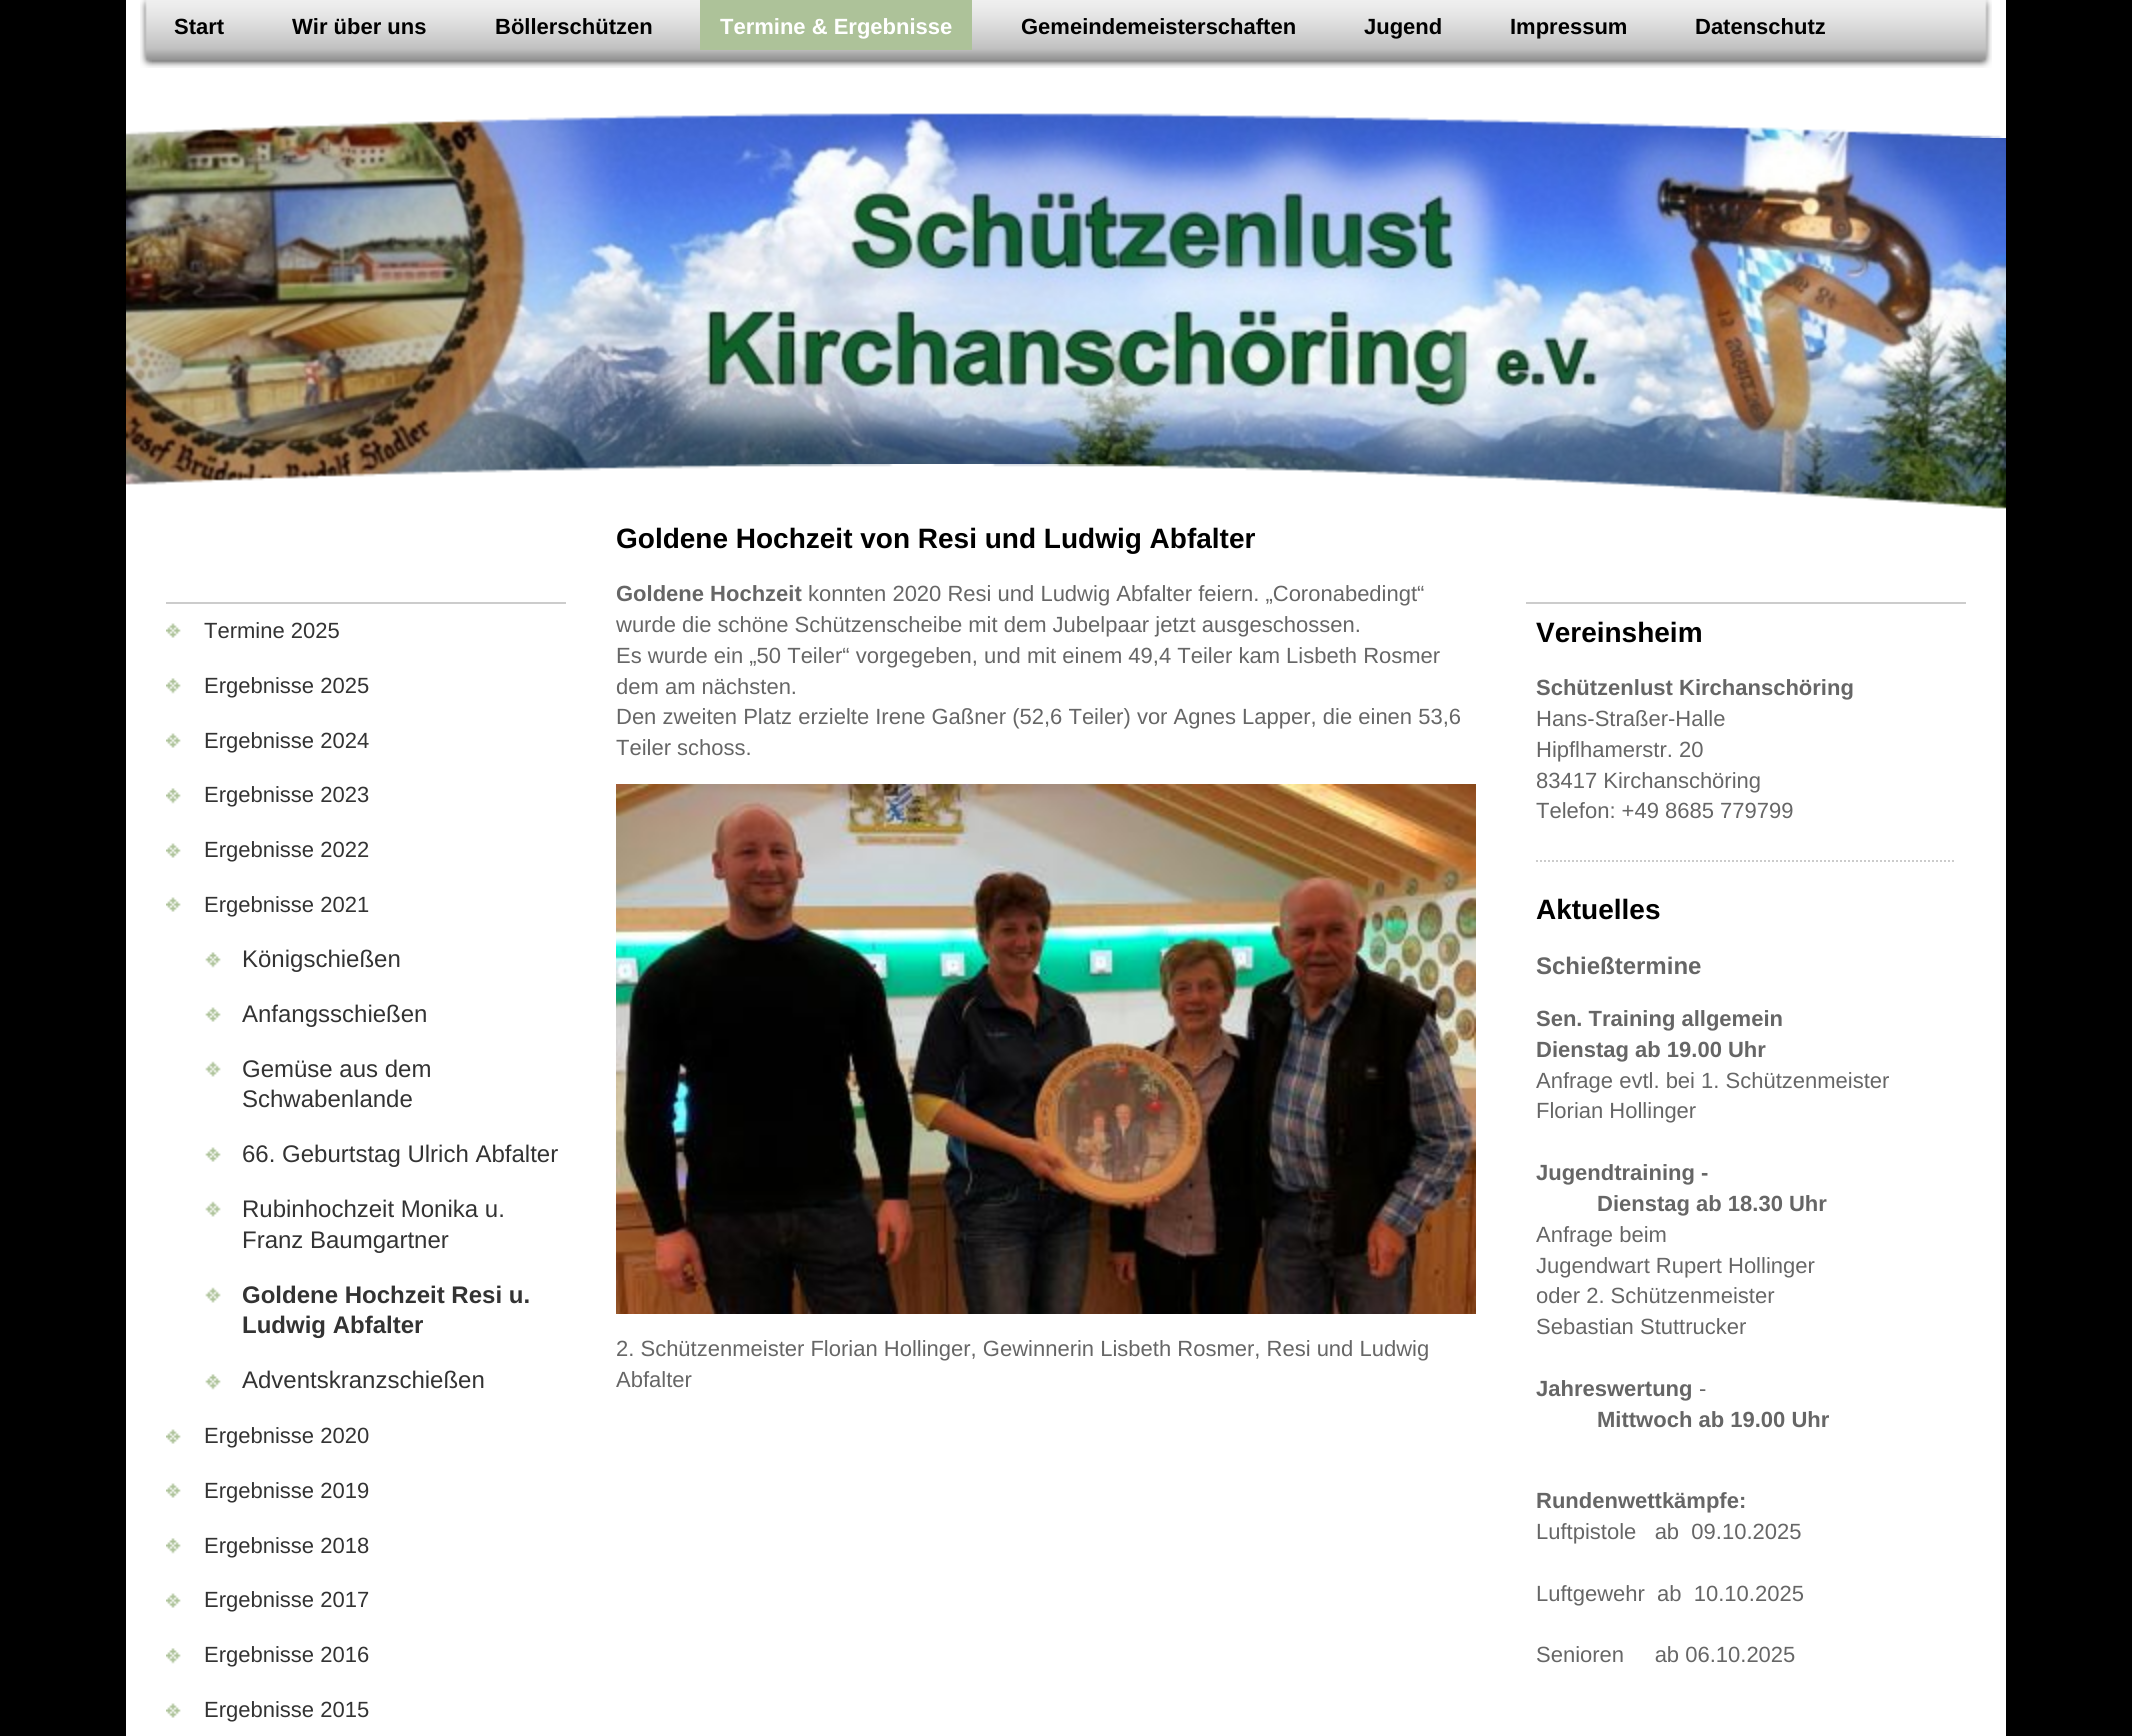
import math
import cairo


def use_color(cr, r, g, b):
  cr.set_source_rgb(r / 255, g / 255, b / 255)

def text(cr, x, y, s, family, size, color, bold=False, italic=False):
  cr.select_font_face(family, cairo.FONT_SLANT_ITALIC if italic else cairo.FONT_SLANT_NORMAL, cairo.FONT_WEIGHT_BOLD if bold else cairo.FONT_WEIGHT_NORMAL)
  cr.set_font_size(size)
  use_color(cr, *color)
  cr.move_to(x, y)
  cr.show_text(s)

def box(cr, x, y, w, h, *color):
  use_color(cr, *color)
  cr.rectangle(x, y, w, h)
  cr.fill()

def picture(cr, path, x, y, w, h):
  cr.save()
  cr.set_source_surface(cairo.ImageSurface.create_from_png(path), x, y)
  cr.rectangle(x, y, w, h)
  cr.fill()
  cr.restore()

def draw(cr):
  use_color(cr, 0, 0, 0)
  cr.paint()
  box(cr, 126, 0, 1880, 90, 255, 255, 255)
  picture(cr, "img_01.png", 140, 0, 12, 68)
  picture(cr, "img_02.png", 152, 0, 1828, 68)
  box(cr, 700, 0, 272, 50, 173, 194, 153)
  picture(cr, "img_03.png", 1980, 0, 12, 68)
  picture(cr, "img_05.png", 126, 113, 1880, 396)
  picture(cr, "img_04.png", 126, 90, 1880, 48)
  picture(cr, "img_06.png", 126, 464, 1880, 46)
  box(cr, 126, 510, 1880, 1226, 255, 255, 255)
  box(cr, 166, 623, 55, 1095, 173, 194, 153)
  box(cr, 166, 602, 400, 2, 204, 204, 204)
  picture(cr, "img_07.png", 166, 604, 400, 54)
  picture(cr, "img_08.png", 166, 658, 400, 56)
  picture(cr, "img_07.png", 166, 714, 400, 54)
  picture(cr, "img_08.png", 166, 768, 400, 56)
  picture(cr, "img_07.png", 166, 824, 400, 54)
  picture(cr, "img_07.png", 166, 878, 400, 54)
  picture(cr, "img_09.png", 166, 932, 400, 56)
  picture(cr, "img_10.png", 166, 988, 400, 54)
  picture(cr, "img_11.png", 166, 1042, 400, 86)
  picture(cr, "img_10.png", 166, 1128, 400, 54)
  picture(cr, "img_11.png", 166, 1182, 400, 86)
  picture(cr, "img_11.png", 166, 1268, 400, 86)
  picture(cr, "img_09.png", 166, 1354, 400, 56)
  picture(cr, "img_07.png", 166, 1410, 400, 54)
  picture(cr, "img_07.png", 166, 1464, 400, 54)
  picture(cr, "img_08.png", 166, 1518, 400, 56)
  picture(cr, "img_07.png", 166, 1574, 400, 54)
  picture(cr, "img_08.png", 166, 1628, 400, 56)
  picture(cr, "img_12.png", 166, 1684, 400, 52)
  picture(cr, "img_13.png", 616, 784, 860, 530)
  box(cr, 1526, 602, 440, 2, 204, 204, 204)
  cr.new_path()
  cr.move_to(1536, 861)
  cr.line_to(1956, 861)
  cr.set_dash([2, 2])
  cr.stroke()
  text(cr, 174, 34, "Start", "Liberation Sans", 22, (0, 0, 0), bold=True)
  text(cr, 292, 34, "Wir über uns", "Liberation Sans", 22, (0, 0, 0), bold=True)
  text(cr, 495, 34, "Böllerschützen", "Liberation Sans", 22, (0, 0, 0), bold=True)
  text(cr, 720, 34, "Termine & Ergebnisse", "Liberation Sans", 22, (255, 255, 255), bold=True)
  text(cr, 1021, 34, "Gemeindemeisterschaften", "Liberation Sans", 22, (0, 0, 0), bold=True)
  text(cr, 1364, 34, "Jugend", "Liberation Sans", 22, (0, 0, 0), bold=True)
  text(cr, 1510, 34, "Impressum", "Liberation Sans", 22, (0, 0, 0), bold=True)
  text(cr, 1695, 34, "Datenschutz", "Liberation Sans", 22, (0, 0, 0), bold=True)
  text(cr, 204, 638, "Termine 2025", "Liberation Sans", 22, (51, 51, 51))
  text(cr, 204, 693, "Ergebnisse 2025", "Liberation Sans", 22, (51, 51, 51))
  text(cr, 204, 748, "Ergebnisse 2024", "Liberation Sans", 22, (51, 51, 51))
  text(cr, 204, 802, "Ergebnisse 2023", "Liberation Sans", 22, (51, 51, 51))
  text(cr, 204, 857, "Ergebnisse 2022", "Liberation Sans", 22, (51, 51, 51))
  text(cr, 204, 912, "Ergebnisse 2021", "Liberation Sans", 22, (51, 51, 51))
  text(cr, 242, 967, "Königschießen", "Liberation Sans", 24, (51, 51, 51))
  text(cr, 242, 1022, "Anfangsschießen", "Liberation Sans", 24, (51, 51, 51))
  text(cr, 242, 1077, "Gemüse aus dem", "Liberation Sans", 24, (51, 51, 51))
  text(cr, 242, 1107, "Schwabenlande", "Liberation Sans", 24, (51, 51, 51))
  text(cr, 242, 1162, "66. Geburtstag Ulrich Abfalter", "Liberation Sans", 24, (51, 51, 51))
  text(cr, 242, 1217, "Rubinhochzeit Monika u.", "Liberation Sans", 24, (51, 51, 51))
  text(cr, 242, 1248, "Franz Baumgartner", "Liberation Sans", 24, (51, 51, 51))
  text(cr, 242, 1303, "Goldene Hochzeit Resi u.", "Liberation Sans", 24, (51, 51, 51), bold=True)
  text(cr, 242, 1333, "Ludwig Abfalter", "Liberation Sans", 24, (51, 51, 51), bold=True)
  text(cr, 242, 1388, "Adventskranzschießen", "Liberation Sans", 24, (51, 51, 51))
  text(cr, 204, 1443, "Ergebnisse 2020", "Liberation Sans", 22, (51, 51, 51))
  text(cr, 204, 1498, "Ergebnisse 2019", "Liberation Sans", 22, (51, 51, 51))
  text(cr, 204, 1553, "Ergebnisse 2018", "Liberation Sans", 22, (51, 51, 51))
  text(cr, 204, 1607, "Ergebnisse 2017", "Liberation Sans", 22, (51, 51, 51))
  text(cr, 204, 1662, "Ergebnisse 2016", "Liberation Sans", 22, (51, 51, 51))
  text(cr, 204, 1717, "Ergebnisse 2015", "Liberation Sans", 22, (51, 51, 51))
  text(cr, 616, 548, "Goldene Hochzeit von Resi und Ludwig Abfalter", "Liberation Sans", 28, (0, 0, 0), bold=True)
  text(cr, 616, 601, "Goldene Hochzeit", "Liberation Sans", 22, (102, 102, 102), bold=True)
  text(cr, 808, 601, "konnten 2020 Resi und Ludwig Abfalter feiern. „Coronabedingt“", "Liberation Sans", 22, (102, 102, 102))
  text(cr, 616, 632, "wurde die schöne Schützenscheibe mit dem Jubelpaar jetzt ausgeschossen.", "Liberation Sans", 22, (102, 102, 102))
  text(cr, 616, 663, "Es wurde ein „50 Teiler“ vorgegeben, und mit einem 49,4 Teiler kam Lisbeth Rosmer", "Liberation Sans", 22, (102, 102, 102))
  text(cr, 616, 694, "dem am nächsten.", "Liberation Sans", 22, (102, 102, 102))
  text(cr, 616, 724, "Den zweiten Platz erzielte Irene Gaßner (52,6 Teiler) vor Agnes Lapper, die einen 53,6", "Liberation Sans", 22, (102, 102, 102))
  text(cr, 616, 755, "Teiler schoss.", "Liberation Sans", 22, (102, 102, 102))
  text(cr, 616, 1356, "2. Schützenmeister Florian Hollinger, Gewinnerin Lisbeth Rosmer, Resi und Ludwig", "Liberation Sans", 22, (102, 102, 102))
  text(cr, 616, 1387, "Abfalter", "Liberation Sans", 22, (102, 102, 102))
  text(cr, 1536, 642, "Vereinsheim", "Liberation Sans", 28, (0, 0, 0), bold=True)
  text(cr, 1536, 695, "Schützenlust Kirchanschöring", "Liberation Sans", 22, (102, 102, 102), bold=True)
  text(cr, 1536, 726, "Hans-Straßer-Halle", "Liberation Sans", 22, (102, 102, 102))
  text(cr, 1536, 757, "Hipflhamerstr. 20", "Liberation Sans", 22, (102, 102, 102))
  text(cr, 1536, 788, "83417 Kirchanschöring", "Liberation Sans", 22, (102, 102, 102))
  text(cr, 1536, 818, "Telefon: +49 8685 779799", "Liberation Sans", 22, (102, 102, 102))
  text(cr, 1536, 919, "Aktuelles", "Liberation Sans", 28, (0, 0, 0), bold=True)
  text(cr, 1536, 974, "Schießtermine", "Liberation Sans", 24, (102, 102, 102), bold=True)
  text(cr, 1536, 1026, "Sen. Training allgemein", "Liberation Sans", 22, (102, 102, 102), bold=True)
  text(cr, 1536, 1057, "Dienstag ab 19.00 Uhr", "Liberation Sans", 22, (102, 102, 102), bold=True)
  text(cr, 1536, 1088, "Anfrage evtl. bei 1. Schützenmeister", "Liberation Sans", 22, (102, 102, 102))
  text(cr, 1536, 1118, "Florian Hollinger", "Liberation Sans", 22, (102, 102, 102))
  text(cr, 1536, 1180, "Jugendtraining -", "Liberation Sans", 22, (102, 102, 102), bold=True)
  text(cr, 1597, 1211, "Dienstag ab 18.30 Uhr", "Liberation Sans", 22, (102, 102, 102), bold=True)
  text(cr, 1536, 1242, "Anfrage beim", "Liberation Sans", 22, (102, 102, 102))
  text(cr, 1536, 1273, "Jugendwart Rupert Hollinger", "Liberation Sans", 22, (102, 102, 102))
  text(cr, 1536, 1303, "oder 2. Schützenmeister", "Liberation Sans", 22, (102, 102, 102))
  text(cr, 1536, 1334, "Sebastian Stuttrucker", "Liberation Sans", 22, (102, 102, 102))
  text(cr, 1536, 1396, "Jahreswertung", "Liberation Sans", 22, (102, 102, 102), bold=True)
  text(cr, 1699, 1396, "-", "Liberation Sans", 22, (102, 102, 102))
  text(cr, 1597, 1427, "Mittwoch ab 19.00 Uhr", "Liberation Sans", 22, (102, 102, 102), bold=True)
  text(cr, 1536, 1508, "Rundenwettkämpfe:", "Liberation Sans", 22, (102, 102, 102), bold=True)
  text(cr, 1536, 1539, "Luftpistole   ab  09.10.2025", "Liberation Sans", 22, (102, 102, 102))
  text(cr, 1536, 1601, "Luftgewehr  ab  10.10.2025", "Liberation Sans", 22, (102, 102, 102))
  text(cr, 1536, 1662, "Senioren     ab 06.10.2025", "Liberation Sans", 22, (102, 102, 102))


surface = cairo.ImageSurface(cairo.FORMAT_RGB24, 2132, 1736)
cr = cairo.Context(surface)
options = cairo.FontOptions()
options.set_hint_metrics(cairo.HINT_METRICS_OFF)
options.set_hint_style(cairo.HINT_STYLE_NONE)
cr.set_font_options(options)
cr.set_miter_limit(4)
draw(cr)
surface.write_to_png("out.png")
